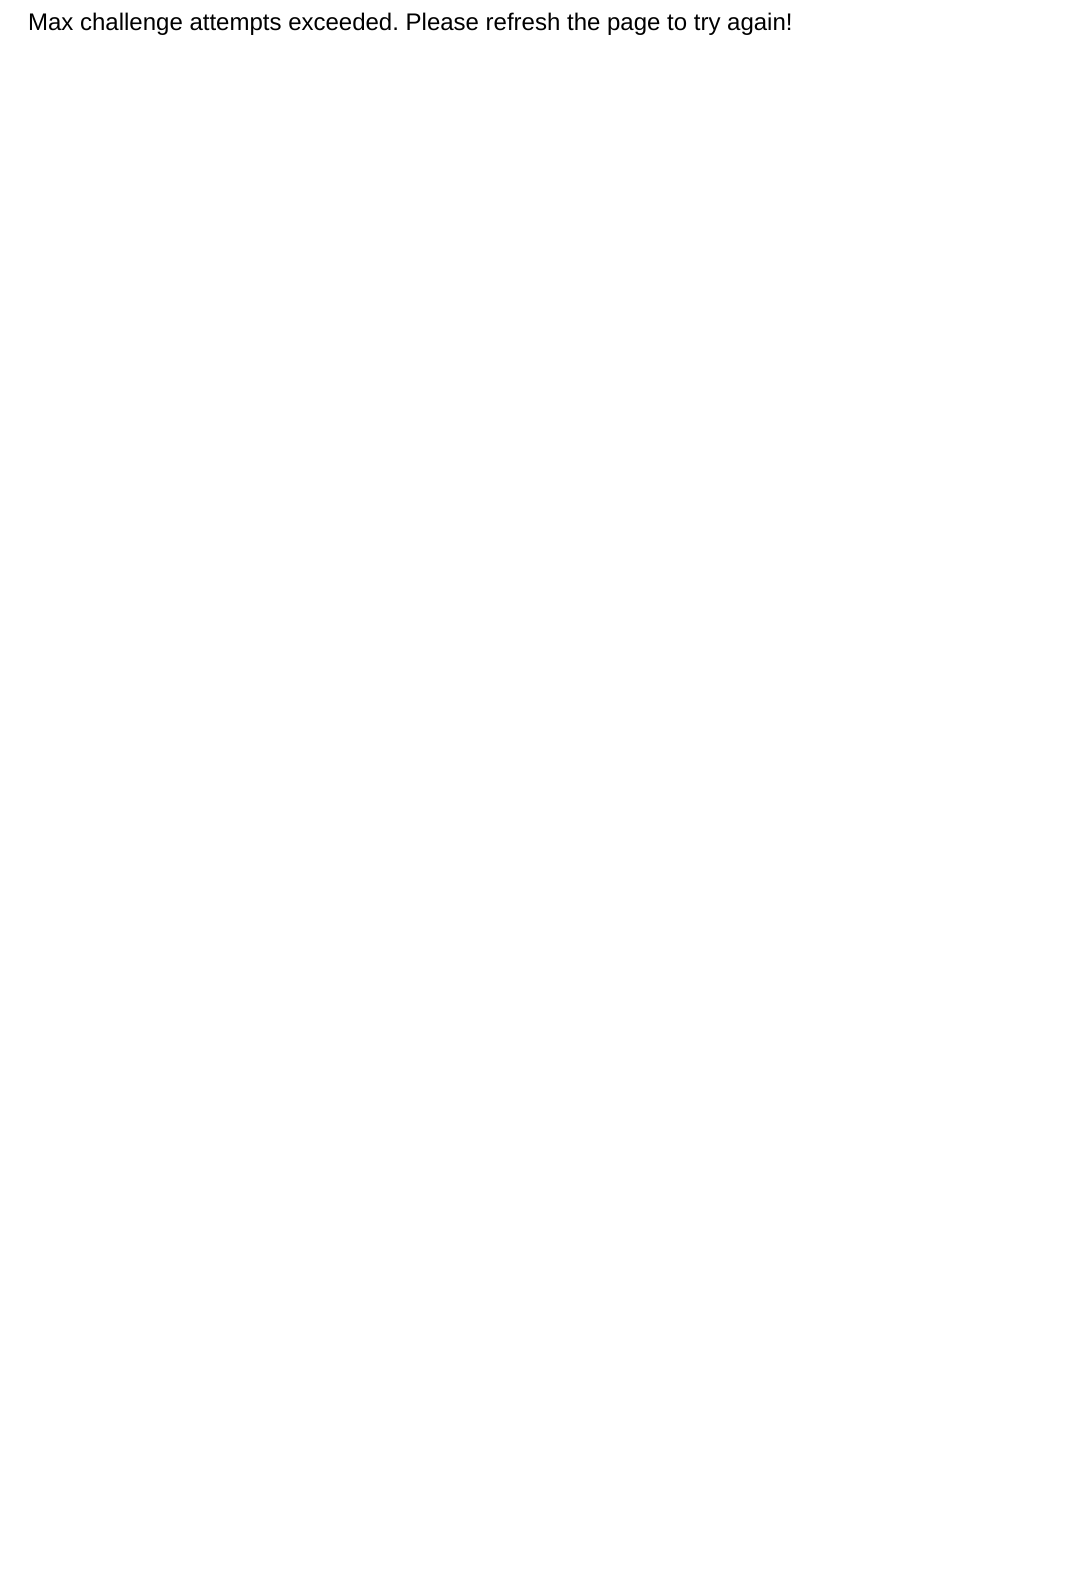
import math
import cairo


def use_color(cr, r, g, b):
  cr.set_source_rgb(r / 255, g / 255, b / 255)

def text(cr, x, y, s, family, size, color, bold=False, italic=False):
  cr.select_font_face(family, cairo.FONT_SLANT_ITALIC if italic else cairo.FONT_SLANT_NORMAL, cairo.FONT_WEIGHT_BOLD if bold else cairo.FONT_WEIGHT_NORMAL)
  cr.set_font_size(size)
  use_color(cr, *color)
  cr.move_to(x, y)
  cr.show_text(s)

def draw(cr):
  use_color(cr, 255, 255, 255)
  cr.paint()
  text(cr, 28, 30, "Max challenge attempts exceeded. Please refresh the page to try again!", "Liberation Sans", 24, (0, 0, 0))


surface = cairo.ImageSurface(cairo.FORMAT_RGB24, 1090, 1571)
cr = cairo.Context(surface)
options = cairo.FontOptions()
options.set_hint_metrics(cairo.HINT_METRICS_OFF)
options.set_hint_style(cairo.HINT_STYLE_NONE)
cr.set_font_options(options)
cr.set_miter_limit(4)
draw(cr)
surface.write_to_png("out.png")
